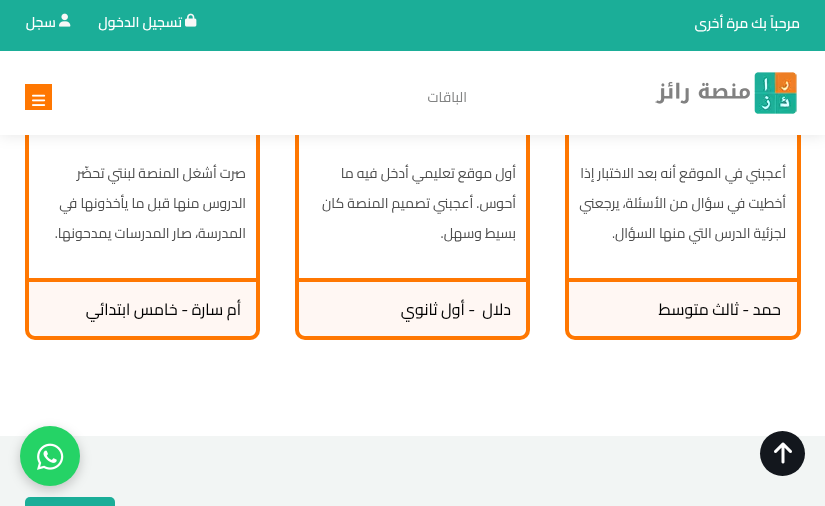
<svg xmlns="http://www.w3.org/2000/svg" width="825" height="506">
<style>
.a{font:600 14px Cairo;direction:rtl;fill:#fff}
.b{font:14px Cairo;direction:rtl;fill:#818282}
.c{font:14px Cairo;direction:rtl;fill:#4c4c4c}
.d{font:16px Cairo;direction:rtl;fill:#000}
</style>
<rect width="100%" height="100%" fill="#fff"/>
<rect fill="none" stroke="#ff7701" stroke-width="4" x="567" y="121" width="232" height="217" rx="8"/>
<rect fill="none" stroke="#ff7701" stroke-width="4" x="297" y="121" width="231" height="217" rx="8"/>
<rect fill="none" stroke="#ff7701" stroke-width="4" x="27" y="121" width="231" height="217" rx="8"/>
<path fill="#0000001a" filter="blur(7.5px)" d="M0 0h825v135H0z"/>
<path fill="#fff" d="M0 51h825v84H0z"/>
<path fill="#1bae98" d="M0 0h825v51H0z"/>
<image href="1.png" x="185" y="13" width="12" height="14"/>
<image href="2.png" x="59" y="13" width="12" height="14"/>
<image href="3.png" x="655" y="72" width="142" height="42"/>
<path fill="#ff7701" d="M25 84h27v26H25z"/>
<image href="4.png" x="32" y="94" width="14" height="12"/>
<path fill="#fff7f3" d="M569 278h228v48c0 5.5-4.5 10-10 10h-208c-5.5 0-10-4.5-10-10z"/>
<path fill="#ff7701" d="M569 278h228v4H569z"/>
<path fill="#fff7f3" d="M299 278h227v48c0 5.5-4.5 10-10 10h-207c-5.5 0-10-4.5-10-10z"/>
<path fill="#ff7701" d="M299 278h227v4H299z"/>
<path fill="#fff7f3" d="M29 278h227v48c0 5.5-4.5 10-10 10h-207c-5.5 0-10-4.5-10-10z"/>
<path fill="#ff7701" d="M29 278h227v4H29z"/>
<path fill="#f2f5f4" d="M0 436h825v70H0z"/>
<rect fill="#1bae98" x="25" y="497" width="90" height="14" rx="5"/>
<circle fill="#13171d" cx="782.5" cy="453.5" r="22.5"/>
<image href="5.png" x="774" y="442" width="18" height="22"/>
<rect fill="#00000033" filter="blur(6px)" x="20" y="430" width="60" height="60" rx="30"/>
<circle fill="#25d366" cx="50" cy="456" r="30"/>
<image href="6.png" x="37" y="443" width="27" height="27"/>
<text class="a" x="800" y="28">مرحباً بك مرة أخرى</text>
<text class="a" x="182" y="27">تسجيل الدخول</text>
<text class="a" x="56" y="27">سجل</text>
<text class="b" x="467" y="102">الباقات</text>
<text class="c" x="786" y="178">أعجبني في الموقع أنه بعد الاختبار إذا</text>
<text class="c" x="786" y="208">أخطيت في سؤال من الأسئلة، يرجعني</text>
<text class="c" x="786" y="238">لجزئية الدرس التي منها السؤال.</text>
<text class="d" x="781" y="315">حمد - ثالث متوسط</text>
<text class="c" x="516" y="178">أول موقع تعليمي أدخل فيه ما</text>
<text class="c" x="516" y="208">أحوس. أعجبني تصميم المنصة كان</text>
<text class="c" x="516" y="238">بسيط وسهل.</text>
<text class="d" xml:space="preserve" x="511" y="315">دلال  - أول ثانوي</text>
<text class="c" x="246" y="178">صرت أشغل المنصة لبنتي تحضّر</text>
<text class="c" x="246" y="208">الدروس منها قبل ما يأخذونها في</text>
<text class="c" x="246" y="238">المدرسة، صار المدرسات يمدحونها.</text>
<text class="d" x="241" y="315">أم سارة - خامس ابتدائي</text>
</svg>
